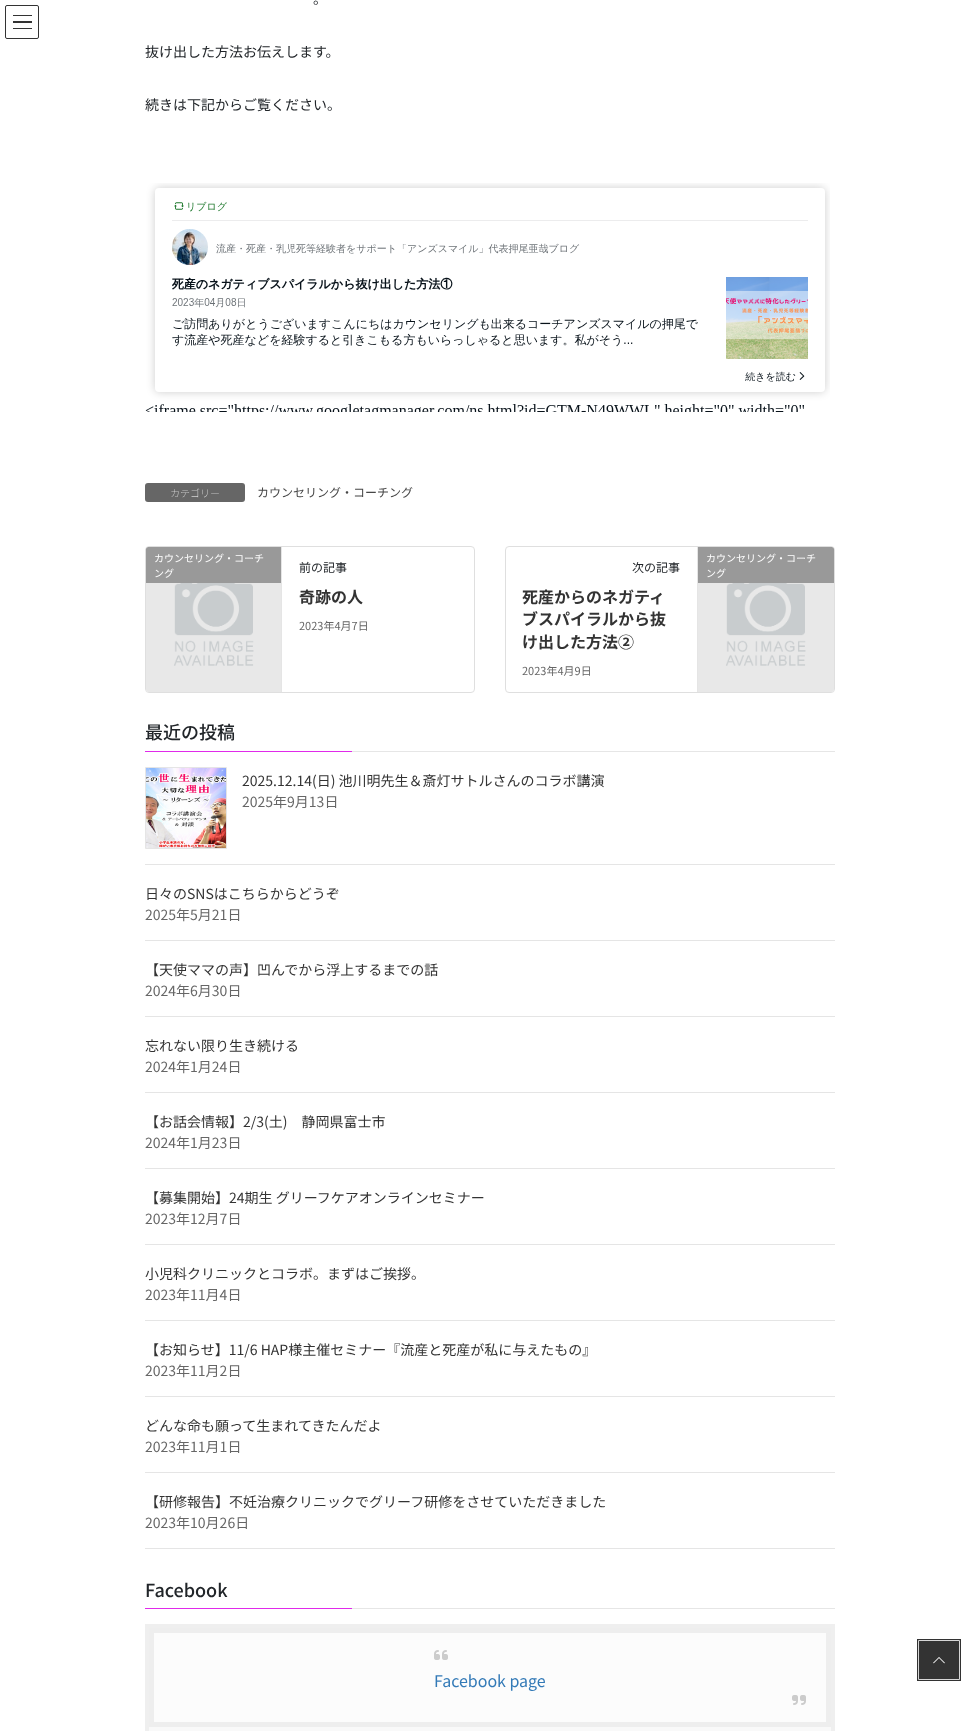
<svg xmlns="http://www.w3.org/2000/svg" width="979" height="1731">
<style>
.a{font:14px Noto Sans JP;fill:#212529}
.b{font:100 10px Noto Sans JP;fill:#fff}
.c{font:12px Noto Sans JP;fill:#464646}
.d{font:10px Noto Sans JP;fill:#fff}
.e{font:12px Noto Sans JP;fill:#212529}
.f{font:bold 16px Noto Sans JP;fill:#333}
.g{font:11px Noto Sans JP;fill:#666}
.h{font:500 18px Noto Sans JP;fill:#212529}
.i{font:14px Noto Sans JP;fill:#333}
.j{font:14px Noto Sans JP;fill:#666}
.k{font:16px Noto Sans JP;fill:#337ab7}
</style>
<rect width="100%" height="100%" fill="#fff"/>
<path fill="#333" d="M13 15h19v1H13z"/>
<path fill="#333" d="M13 21h19v2H13z"/>
<path fill="#333" d="M13 28h19v1H13z"/>
<rect fill="none" stroke="#333" x="5.5" y="5.5" width="33" height="33" rx="1.5"/>
<image href="1.png" x="145" y="183" width="685" height="229"/>
<rect fill="#666" x="145" y="483" width="100" height="19" rx="3"/>
<rect fill="none" stroke="#dfdfdf" x="145.5" y="546.5" width="329" height="146" rx="3.5"/>
<image href="2.png" x="146" y="547" width="135" height="145"/>
<path fill="#e5e5e5" d="M281 547h1v145H281z"/>
<path fill="#999" d="M148.5 547h132.5v36h-135v-33.5c0-1.5 1-2.5 2.5-2.5z"/>
<rect fill="none" stroke="#dfdfdf" x="505.5" y="546.5" width="329" height="146" rx="3.5"/>
<image href="3.png" x="698" y="547" width="136" height="145"/>
<path fill="#e5e5e5" d="M697 547h1v145H697z"/>
<path fill="#999" d="M698 547h133.5c1.5 0 2.5 1 2.5 2.5v33.5h-136z"/>
<path fill="#e6e6e6" d="M352 751h483v1H352z"/>
<path fill="#e02aea" d="M145 751h207v1H145z"/>
<path fill="#e5e5e5" d="M145 864h690v1H145z"/>
<path fill="none" stroke="#e5e5e5" d="M145.5 767.5h81v81H145.5z"/>
<image href="4.png" x="146" y="768" width="80" height="80"/>
<path fill="#e5e5e5" d="M145 940h690v1H145z"/>
<path fill="#e5e5e5" d="M145 1016h690v1H145z"/>
<path fill="#e5e5e5" d="M145 1092h690v1H145z"/>
<path fill="#e5e5e5" d="M145 1168h690v1H145z"/>
<path fill="#e5e5e5" d="M145 1244h690v1H145z"/>
<path fill="#e5e5e5" d="M145 1320h690v1H145z"/>
<path fill="#e5e5e5" d="M145 1396h690v1H145z"/>
<path fill="#e5e5e5" d="M145 1472h690v1H145z"/>
<path fill="#e5e5e5" d="M145 1548h690v1H145z"/>
<path fill="#e6e6e6" d="M352 1608h483v1H352z"/>
<path fill="#e02aea" d="M145 1608h207v1H145z"/>
<path fill="#f9f9f9" d="M149 1727h682v4H149z"/>
<path fill="none" stroke="#efefef" stroke-width="4" d="M147 1626h686v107H147z"/>
<path fill="#fcfcfc" stroke="#eee" stroke-width="5" d="M151.5 1630.5h677v94H151.5z"/>
<image href="5.png" x="434" y="1650" width="14" height="10"/>
<image href="6.png" x="792" y="1695" width="14" height="10"/>
<path fill="none" stroke="#333" stroke-width="2" d="M918 1640h42v40H918z"/>
<path fill="none" stroke="#d6d6d6" d="M918.5 1640.5h41v39H918.5z"/>
<path fill="#333" d="M919 1641h40v38H919z"/>
<image href="7.png" x="933" y="1657" width="12" height="7"/>
<text class="a" x="313" y="4">。</text>
<text class="a" x="145" y="57">抜け出した方法お伝えします。</text>
<text class="a" x="145" y="110">続きは下記からご覧ください。</text>
<text class="b" x="170" y="497">カテゴリー</text>
<text class="c" x="257" y="497">カウンセリング・コーチング</text>
<text class="d" x="154" y="562">カウンセリング・コーチ</text>
<text class="d" x="154" y="577">ング</text>
<text class="e" x="299" y="572">前の記事</text>
<text class="f" x="299" y="603">奇跡の人</text>
<text class="g" x="299" y="630">2023年4月7日</text>
<text class="e" x="632" y="572">次の記事</text>
<text class="f" x="522" y="603">死産からのネガティ</text>
<text class="f" x="522" y="625">ブスパイラルから抜</text>
<text class="f" x="522" y="648">け出した方法②</text>
<text class="g" x="522" y="675">2023年4月9日</text>
<text class="d" x="706" y="562">カウンセリング・コーチ</text>
<text class="d" x="706" y="577">ング</text>
<text class="h" x="145" y="739">最近の投稿</text>
<text class="i" x="242" y="786">2025.12.14(日) 池川明先生＆斎灯サトルさんのコラボ講演</text>
<text class="j" x="242" y="807">2025年9月13日</text>
<text class="i" x="145" y="899">日々のSNSはこちらからどうぞ</text>
<text class="j" x="145" y="920">2025年5月21日</text>
<text class="i" x="145" y="975">【天使ママの声】凹んでから浮上するまでの話</text>
<text class="j" x="145" y="996">2024年6月30日</text>
<text class="i" x="145" y="1051">忘れない限り生き続ける</text>
<text class="j" x="145" y="1072">2024年1月24日</text>
<text class="i" x="145" y="1127">【お話会情報】2/3(土)　静岡県富士市</text>
<text class="j" x="145" y="1148">2024年1月23日</text>
<text class="i" x="145" y="1203">【募集開始】24期生 グリーフケアオンラインセミナー</text>
<text class="j" x="145" y="1224">2023年12月7日</text>
<text class="i" x="145" y="1279">小児科クリニックとコラボ。まずはご挨拶。</text>
<text class="j" x="145" y="1300">2023年11月4日</text>
<text class="i" x="145" y="1355">【お知らせ】11/6 HAP様主催セミナー『流産と死産が私に与えたもの』</text>
<text class="j" x="145" y="1376">2023年11月2日</text>
<text class="i" x="145" y="1431">どんな命も願って生まれてきたんだよ</text>
<text class="j" x="145" y="1452">2023年11月1日</text>
<text class="i" x="145" y="1507">【研修報告】不妊治療クリニックでグリーフ研修をさせていただきました</text>
<text class="j" x="145" y="1528">2023年10月26日</text>
<text class="h" x="145" y="1597">Facebook</text>
<text class="k" x="434" y="1687">Facebook page</text>
</svg>
